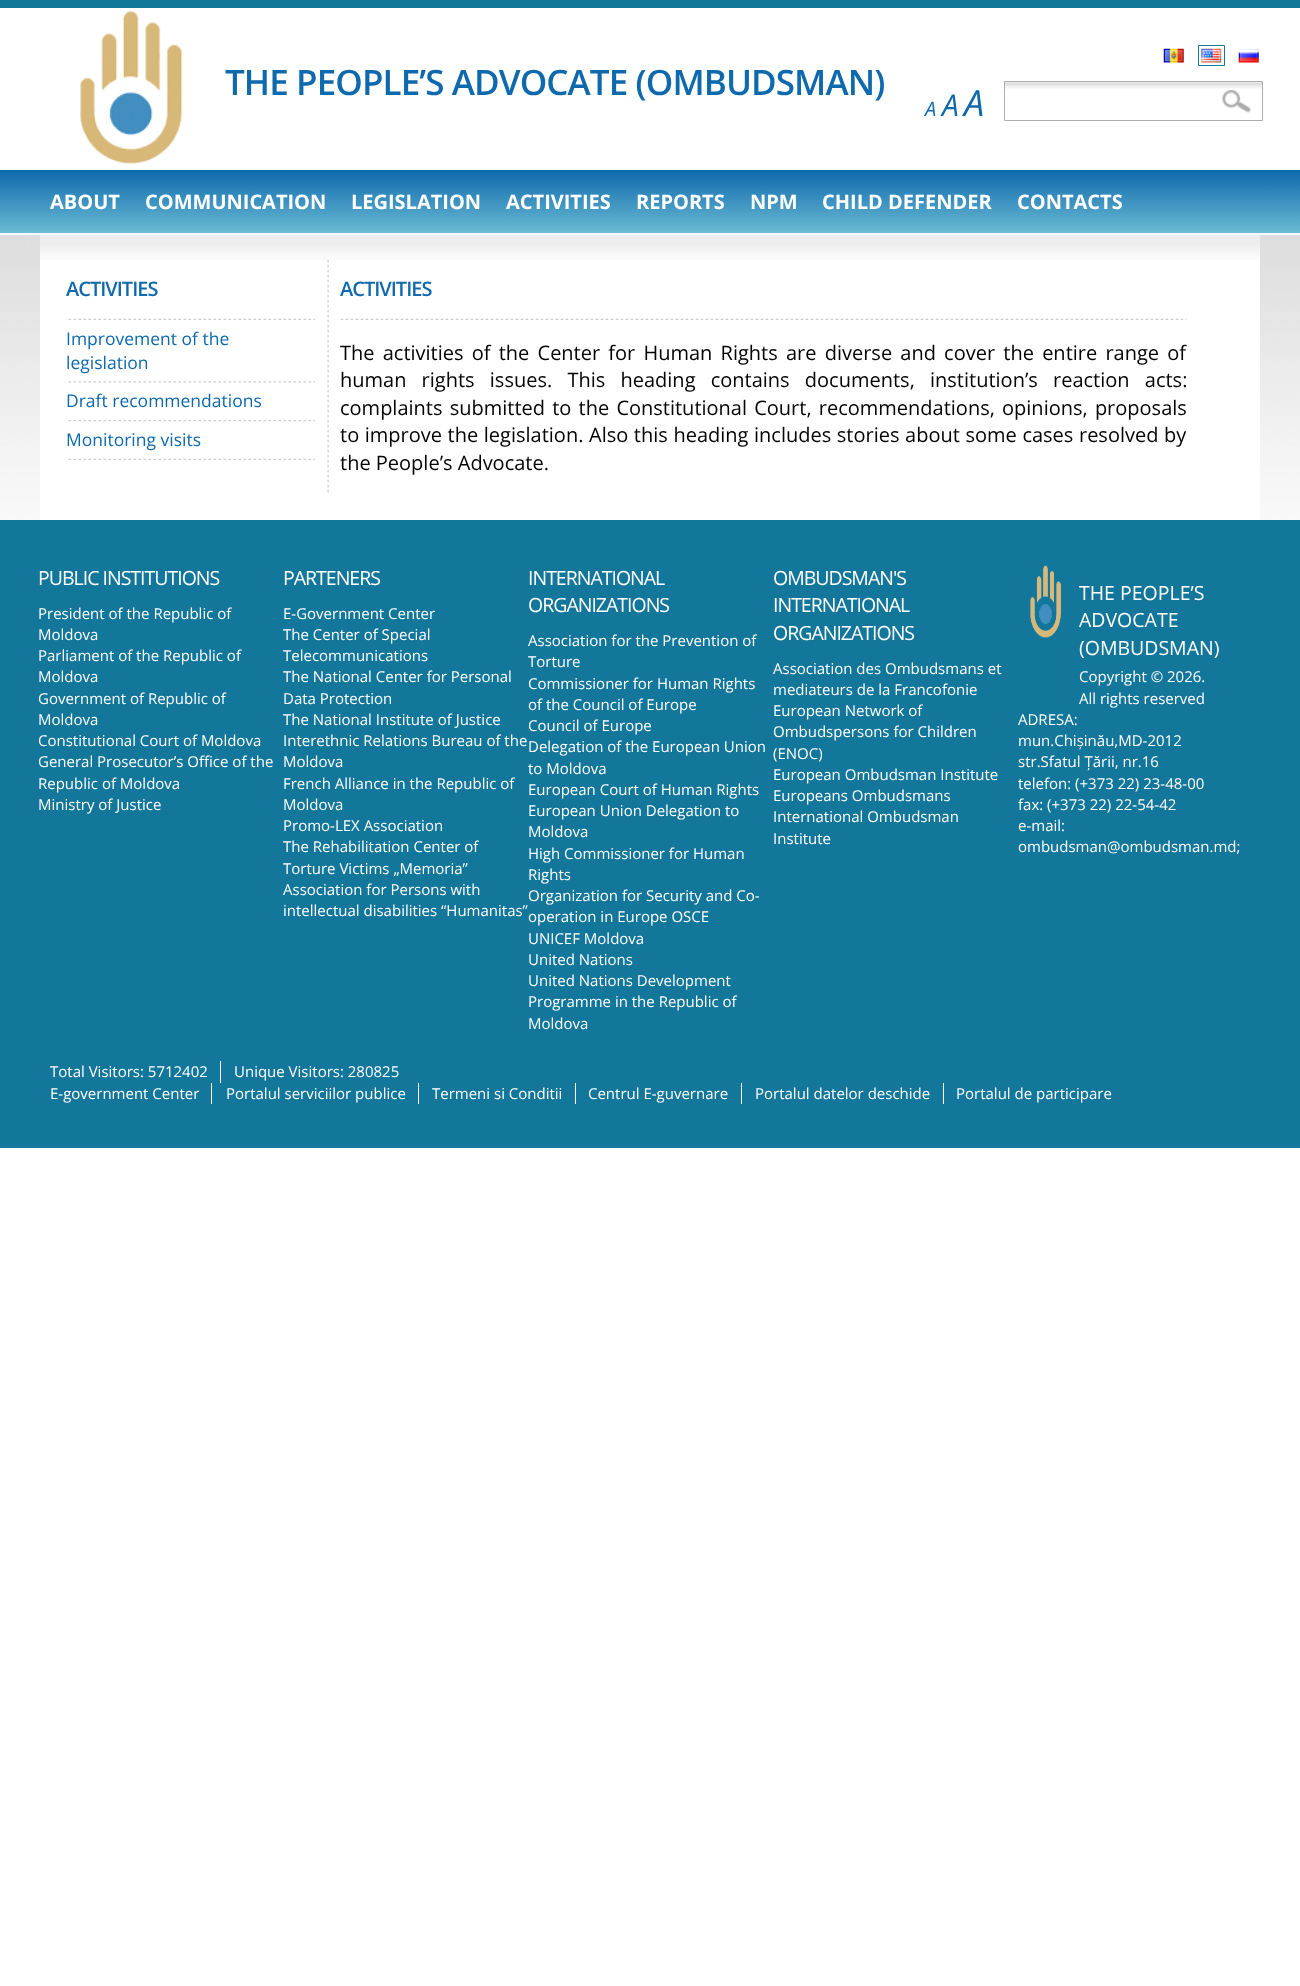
<svg xmlns="http://www.w3.org/2000/svg" width="1300" height="1986">
<style>
.a{font:600 35px Open Sans;letter-spacing:-0.9px;fill:#0e69ad}
.b{font:italic 20px Open Sans;fill:#0e69ad}
.c{font:italic 30px Open Sans;fill:#0e69ad}
.d{font:italic 36px Open Sans;fill:#0e69ad}
.e{font:bold 20px Open Sans;fill:#fff}
.f{font:600 20px Open Sans;letter-spacing:-1px;fill:#0e69ad}
.g{font:17.5px Open Sans;fill:#0e69ad}
.h{font:20px Open Sans;fill:#030303}
.i{font:19.5px Open Sans;letter-spacing:-1px;fill:#fff}
.j{font:15px Open Sans;fill:#fff}
.k{font:19.5px Open Sans;fill:#fff}
</style>
<defs>
<linearGradient id="g1" gradientUnits="userSpaceOnUse" x1="650" y1="170" x2="650" y2="233"><stop offset="0" stop-color="#0e69ad"/><stop offset="1" stop-color="#6abbd3"/></linearGradient>
</defs>
<rect width="100%" height="100%" fill="#fff"/>
<path fill="#13779a" d="M0 0h1300v8H0z"/>
<image href="1.png" x="1163" y="48" width="21" height="15"/>
<path fill="none" stroke="#13779b" d="M1198.5 45.5h26v20H1198.5z"/>
<image href="2.png" x="1201" y="48" width="21" height="15"/>
<image href="3.png" x="1238" y="48" width="21" height="15"/>
<image href="4.png" x="80" y="11" width="103" height="153"/>
<image href="5.png" x="1003" y="82" width="259" height="7"/>
<path fill="none" stroke="#acacac" d="M1004.5 81.5h258v39H1004.5z"/>
<image href="6.png" x="1222" y="89" width="30" height="24"/>
<path fill="url(#g1)" d="M0 170h1300v63H0z"/>
<image href="7.png" x="0" y="235" width="1300" height="285"/>
<path fill="#fff" d="M40 235h1220v285H40z"/>
<image href="8.png" x="40" y="235" width="1220" height="25"/>
<image href="9.png" x="66" y="318" width="249" height="2"/>
<image href="10.png" x="68" y="381" width="247" height="2"/>
<image href="11.png" x="66" y="420" width="249" height="2"/>
<image href="9.png" x="66" y="458" width="249" height="2"/>
<image href="12.png" x="327" y="260" width="2" height="235"/>
<image href="13.png" x="340" y="318" width="847" height="2"/>
<path fill="#13779b" d="M0 520h1300v628H0z"/>
<image href="14.png" x="1030" y="565" width="31" height="73"/>
<path fill="#fff" d="M220 1061h1v22H220z"/>
<path fill="#fff" d="M211 1083h1v21H211z"/>
<path fill="#fff" d="M418 1083h1v21H418z"/>
<path fill="#fff" d="M575 1083h1v21H575z"/>
<path fill="#fff" d="M741 1083h1v21H741z"/>
<path fill="#fff" d="M943 1083h1v21H943z"/>
<text class="a" x="225" y="95">THE PEOPLE’S ADVOCATE (OMBUDSMAN)</text>
<text class="b" x="925" y="116">A</text>
<text class="c" x="942" y="116">A</text>
<text class="d" x="964" y="116">A</text>
<text class="e" x="50" y="209">ABOUT</text>
<text class="e" x="145" y="209">COMMUNICATION</text>
<text class="e" x="351" y="209">LEGISLATION</text>
<text class="e" x="506" y="209">ACTIVITIES</text>
<text class="e" x="636" y="209">REPORTS</text>
<text class="e" x="750" y="209">NPM</text>
<text class="e" x="822" y="209">CHILD DEFENDER</text>
<text class="e" x="1017" y="209">CONTACTS</text>
<text class="f" x="66" y="296">ACTIVITIES</text>
<text class="g" x="66" y="345">Improvement of the</text>
<text class="g" x="66" y="369">legislation</text>
<text class="g" x="66" y="407">Draft recommendations</text>
<text class="g" x="66" y="446">Monitoring visits</text>
<text class="f" x="340" y="296">ACTIVITIES</text>
<text class="h" x="340" y="360" word-spacing="3">The activities of the Center for Human Rights are diverse and cover the entire range of</text>
<text class="h" x="340" y="387" word-spacing="10">human rights issues. This heading contains documents, institution’s reaction acts:</text>
<text class="h" x="340" y="415" word-spacing="2">complaints submitted to the Constitutional Court, recommendations, opinions, proposals</text>
<text class="h" x="340" y="442" word-spacing="0.4">to improve the legislation. Also this heading includes stories about some cases resolved by</text>
<text class="h" x="340" y="470">the People’s Advocate.</text>
<text class="i" x="38" y="585">PUBLIC INSTITUTIONS</text>
<text class="j" x="38" y="619">President of the Republic of</text>
<text class="j" x="38" y="640">Moldova</text>
<text class="j" x="38" y="661">Parliament of the Republic of</text>
<text class="j" x="38" y="682">Moldova</text>
<text class="j" x="38" y="704">Government of Republic of</text>
<text class="j" x="38" y="725">Moldova</text>
<text class="j" x="38" y="746">Constitutional Court of Moldova</text>
<text class="j" x="38" y="767">General Prosecutor’s Office of the</text>
<text class="j" x="38" y="789">Republic of Moldova</text>
<text class="j" x="38" y="810">Ministry of Justice</text>
<text class="i" x="283" y="585">PARTENERS</text>
<text class="j" x="283" y="619">E-Government Center</text>
<text class="j" x="283" y="640">The Center of Special</text>
<text class="j" x="283" y="661">Telecommunications</text>
<text class="j" x="283" y="682">The National Center for Personal</text>
<text class="j" x="283" y="704">Data Protection</text>
<text class="j" x="283" y="725">The National Institute of Justice</text>
<text class="j" x="283" y="746">Interethnic Relations Bureau of the</text>
<text class="j" x="283" y="767">Moldova</text>
<text class="j" x="283" y="789">French Alliance in the Republic of</text>
<text class="j" x="283" y="810">Moldova</text>
<text class="j" x="283" y="831">Promo-LEX Association</text>
<text class="j" x="283" y="852">The Rehabilitation Center of</text>
<text class="j" x="283" y="874">Torture Victims „Memoria”</text>
<text class="j" x="283" y="895">Association for Persons with</text>
<text class="j" x="283" y="916">intellectual disabilities “Humanitas”</text>
<text class="i" x="528" y="585">INTERNATIONAL</text>
<text class="i" x="528" y="612">ORGANIZATIONS</text>
<text class="j" x="528" y="646">Association for the Prevention of</text>
<text class="j" x="528" y="667">Torture</text>
<text class="j" x="528" y="689">Commissioner for Human Rights</text>
<text class="j" x="528" y="710">of the Council of Europe</text>
<text class="j" x="528" y="731">Council of Europe</text>
<text class="j" x="528" y="752">Delegation of the European Union</text>
<text class="j" x="528" y="774">to Moldova</text>
<text class="j" x="528" y="795">European Court of Human Rights</text>
<text class="j" x="528" y="816">European Union Delegation to</text>
<text class="j" x="528" y="837">Moldova</text>
<text class="j" x="528" y="859">High Commissioner for Human</text>
<text class="j" x="528" y="880">Rights</text>
<text class="j" x="528" y="901">Organization for Security and Co-</text>
<text class="j" x="528" y="922">operation in Europe OSCE</text>
<text class="j" x="528" y="944">UNICEF Moldova</text>
<text class="j" x="528" y="965">United Nations</text>
<text class="j" x="528" y="986">United Nations Development</text>
<text class="j" x="528" y="1007">Programme in the Republic of</text>
<text class="j" x="528" y="1029">Moldova</text>
<text class="i" x="773" y="585">OMBUDSMAN'S</text>
<text class="i" x="773" y="612">INTERNATIONAL</text>
<text class="i" x="773" y="640">ORGANIZATIONS</text>
<text class="j" x="773" y="674">Association des Ombudsmans et</text>
<text class="j" x="773" y="695">mediateurs de la Francofonie</text>
<text class="j" x="773" y="716">European Network of</text>
<text class="j" x="773" y="737">Ombudspersons for Children</text>
<text class="j" x="773" y="759">(ENOC)</text>
<text class="j" x="773" y="780">European Ombudsman Institute</text>
<text class="j" x="773" y="801">Europeans Ombudsmans</text>
<text class="j" x="773" y="822">International Ombudsman</text>
<text class="j" x="773" y="844">Institute</text>
<text class="k" x="1079" y="600">THE PEOPLE’S</text>
<text class="k" x="1079" y="627">ADVOCATE</text>
<text class="k" x="1079" y="655">(OMBUDSMAN)</text>
<text class="j" x="1079" y="682">Copyright © 2026.</text>
<text class="j" x="1079" y="704">All rights reserved</text>
<text class="j" x="1018" y="725">ADRESA:</text>
<text class="j" x="1018" y="746">mun.Chișinău,MD-2012</text>
<text class="j" x="1018" y="767">str.Sfatul Țării, nr.16</text>
<text class="j" x="1018" y="789">telefon: (+373 22) 23-48-00</text>
<text class="j" x="1018" y="810">fax: (+373 22) 22-54-42</text>
<text class="j" x="1018" y="831">e-mail:</text>
<text class="j" x="1018" y="852">ombudsman@ombudsman.md;</text>
<text class="j" x="50" y="1077">Total Visitors: 5712402</text>
<text class="j" x="234" y="1077">Unique Visitors: 280825</text>
<text class="j" x="50" y="1099">E-government Center</text>
<text class="j" x="226" y="1099">Portalul serviciilor publice</text>
<text class="j" x="432" y="1099">Termeni si Conditii</text>
<text class="j" x="588" y="1099">Centrul E-guvernare</text>
<text class="j" x="755" y="1099">Portalul datelor deschide</text>
<text class="j" x="956" y="1099">Portalul de participare</text>
</svg>
